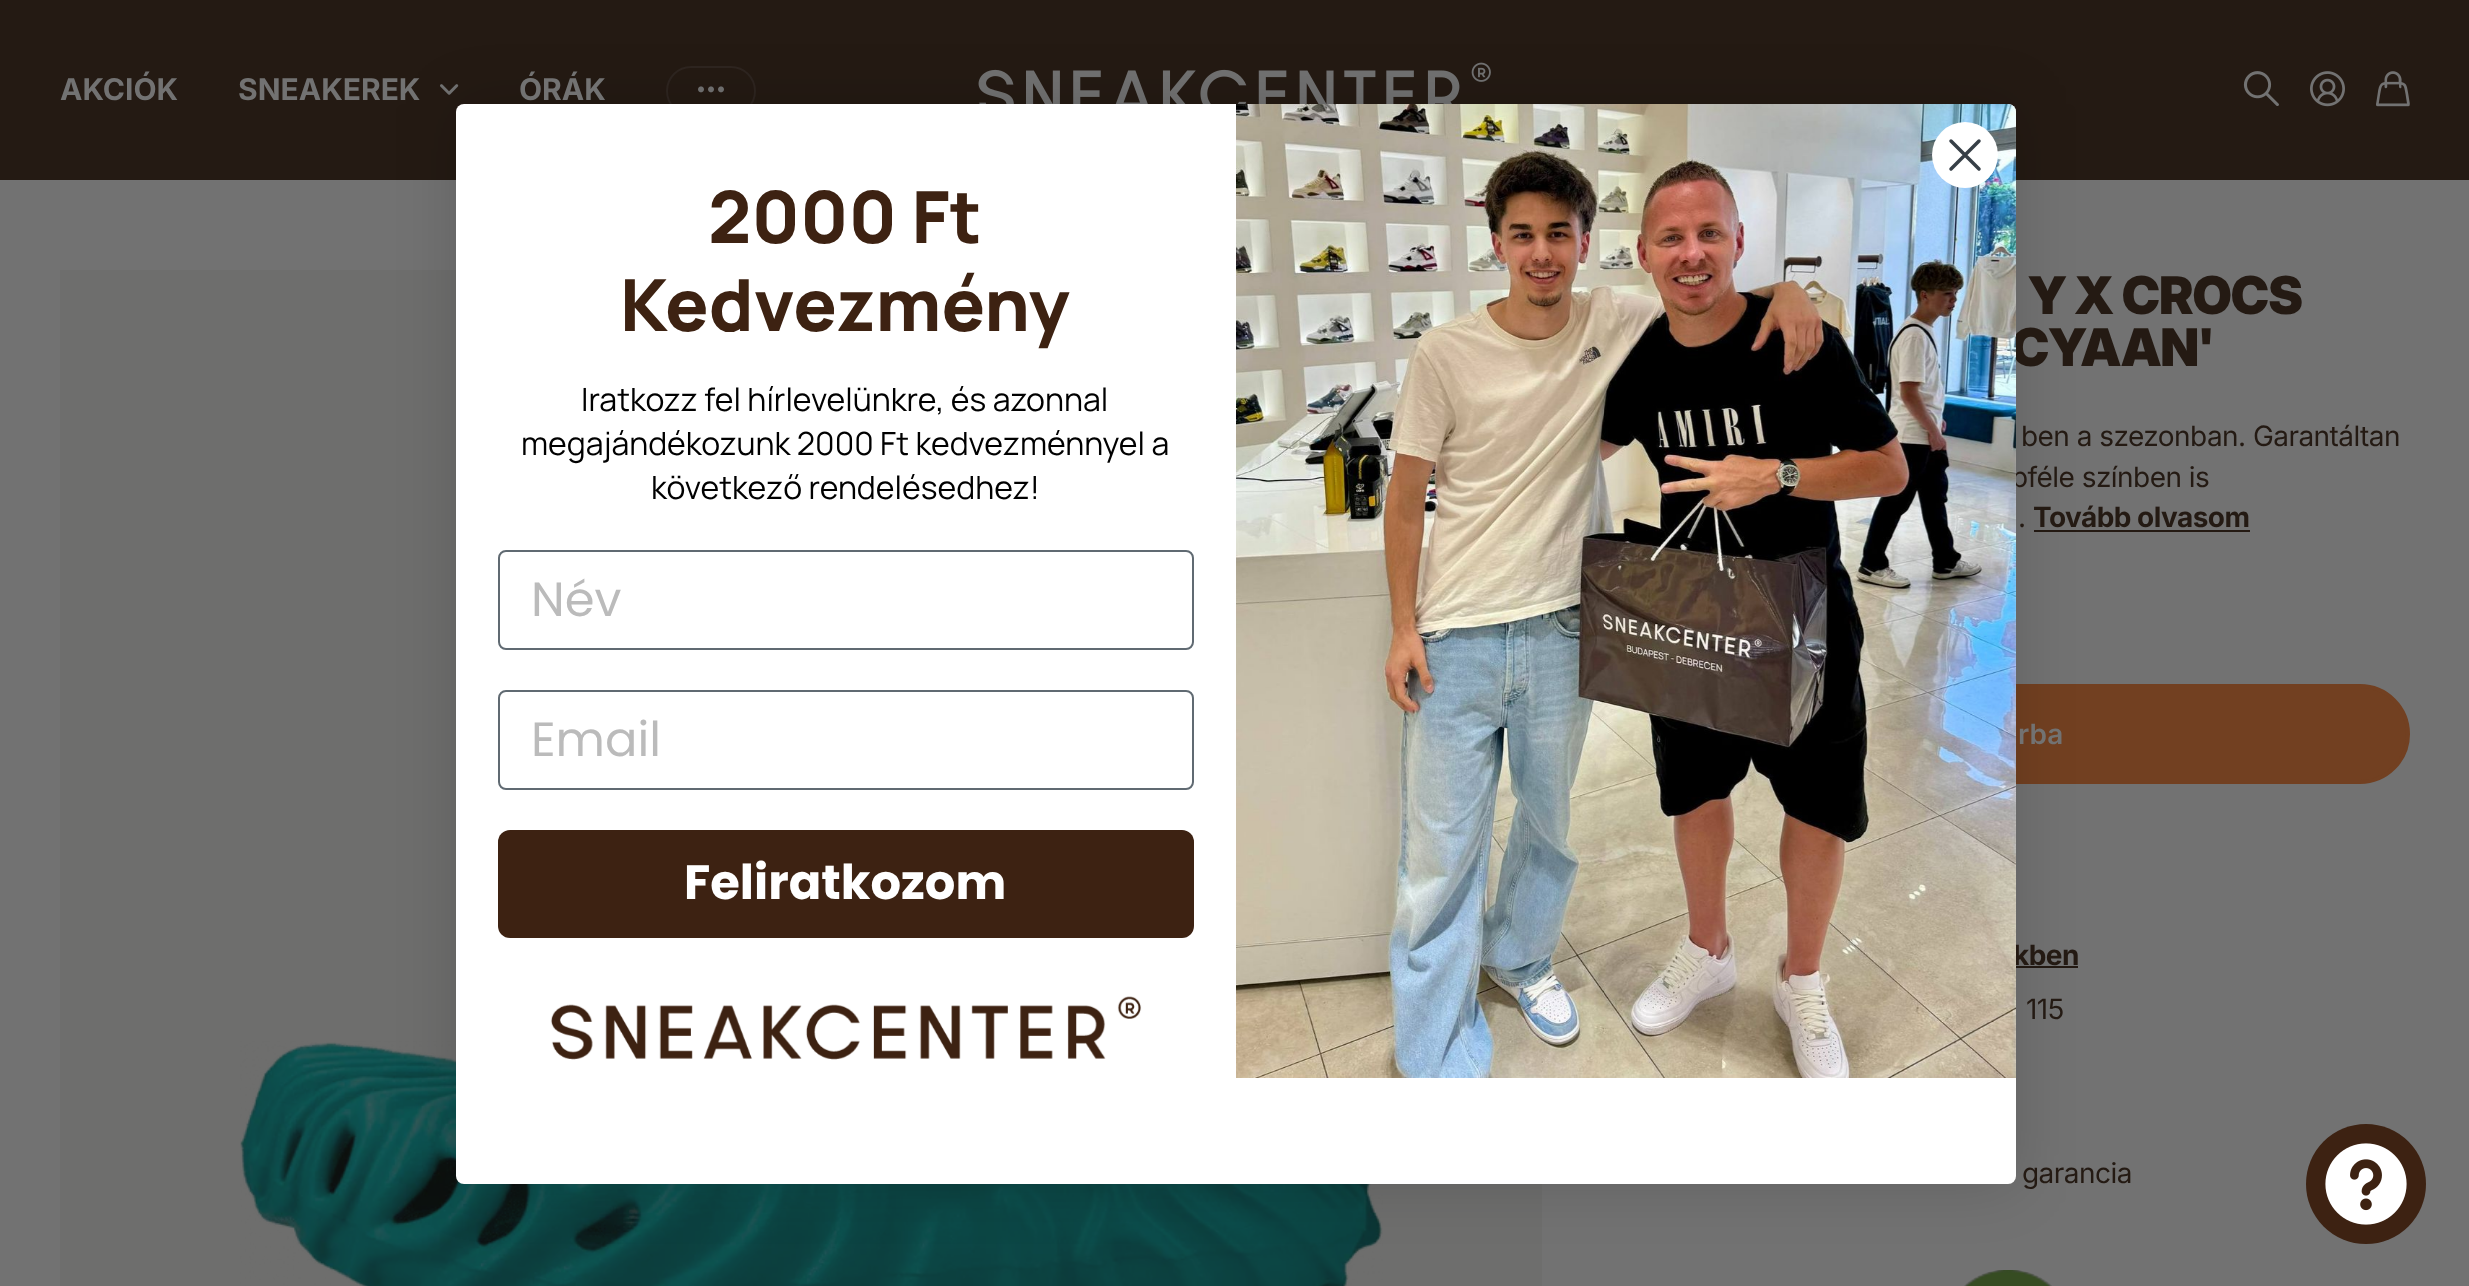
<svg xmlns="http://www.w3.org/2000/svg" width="2469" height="1286">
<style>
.a{font:bold 30px Inter;fill:#727272}
.b{font:900 52px Inter;letter-spacing:-1px;fill:#241a13}
.c{font:28px Inter;letter-spacing:-0.55px;fill:#241a13}
.d{font:bold 28px Inter;letter-spacing:-0.55px;fill:#241a13}
.e{font:600 28px Inter;fill:#727272}
.f{font:800 72px Manrope;fill:#3d2212}
.g{font:32px Manrope;fill:#000}
.h{font:48px Poppins;fill:#bbb}
.i{font:bold 48px Poppins;fill:#fff}
</style>
<rect width="100%" height="100%" fill="#727272"/>
<path fill="#241a13" d="M0 0h2469v180H0z"/>
<image href="1.png" x="440" y="84" width="19" height="11"/>
<rect fill="none" stroke="#2e2520" stroke-width="2" x="667" y="67" width="88" height="48" rx="24"/>
<image href="2.png" x="698" y="86" width="26" height="7"/>
<image href="3.png" x="978" y="62" width="513" height="42"/>
<image href="4.png" x="2243" y="71" width="36" height="35"/>
<image href="5.png" x="2310" y="71" width="35" height="36"/>
<image href="6.png" x="2376" y="71" width="34" height="36"/>
<path fill="#6e6e6d" d="M60 270h1482v1016H60z"/>
<image href="7.png" x="240" y="1041" width="1143" height="245"/>
<path fill="#241a13" d="M2034 530h216v2H2034z"/>
<rect fill="#724021" stroke="#724021" stroke-width="4" x="1608" y="686" width="800" height="96" rx="48"/>
<path fill="#241a13" d="M2016 966h62v2H2016z"/>
<image href="8.png" x="1964" y="1270" width="88" height="16"/>
<rect fill="#00000026" filter="blur(30px)" x="456" y="104" width="1560" height="1080" rx="8"/>
<circle fill="#3d2212" cx="2366" cy="1184" r="60"/>
<image href="11.png" x="2325" y="1143" width="82" height="82"/>
<text class="a" x="60" y="100">AKCIÓK</text>
<text class="a" x="238" y="100">SNEAKEREK</text>
<text class="a" x="519" y="100">ÓRÁK</text>
<text class="b" x="2028" y="314">Y X CROCS</text>
<text class="b" x="2011" y="366">CYAAN'</text>
<text class="c" x="2021" y="446">ben a szezonban. Garantáltan</text>
<text class="c" x="2011" y="487">bféle színben is</text>
<text class="c" x="2018" y="527">.</text>
<text class="d" x="2033" y="527">Tovább olvasom</text>
<text class="e" x="2018" y="744">rba</text>
<text class="d" x="2013" y="965">kben</text>
<text class="c" x="2026" y="1019">115</text>
<text class="c" x="2022" y="1183">garancia</text>
<rect fill="#fff" x="456" y="104" width="1560" height="1080" rx="8"/>
<text class="f" x="708" y="243">2000 Ft</text>
<text class="f" x="620" y="331">Kedvezmény</text>
<text class="g" x="581" y="411">Iratkozz fel hírlevelünkre, és azonnal</text>
<text class="g" x="521" y="455">megajándékozunk 2000 Ft kedvezménnyel a</text>
<text class="g" x="651" y="499">következő rendelésedhez!</text>
<rect fill="none" stroke="#606a72" stroke-width="2" x="499" y="551" width="694" height="98" rx="7"/>
<text class="h" x="531" y="616">Név</text>
<rect fill="none" stroke="#606a72" stroke-width="2" x="499" y="691" width="694" height="98" rx="7"/>
<text class="h" x="531" y="756">Email</text>
<rect fill="#3d2212" x="498" y="830" width="696" height="108" rx="12"/>
<text class="i" x="684" y="899">Feliratkozom</text>
<image href="9.png" x="550" y="996" width="592" height="64"/>
<image href="10.png" x="1236" y="104" width="780" height="974"/>
<circle fill="#fff" cx="1965" cy="155" r="33"/>
<path fill="none" stroke="#373f47" stroke-width="3.5" stroke-linecap="round" stroke-linejoin="round" d="M1951 141l28 28m-28 0l28-28z"/>
</svg>
